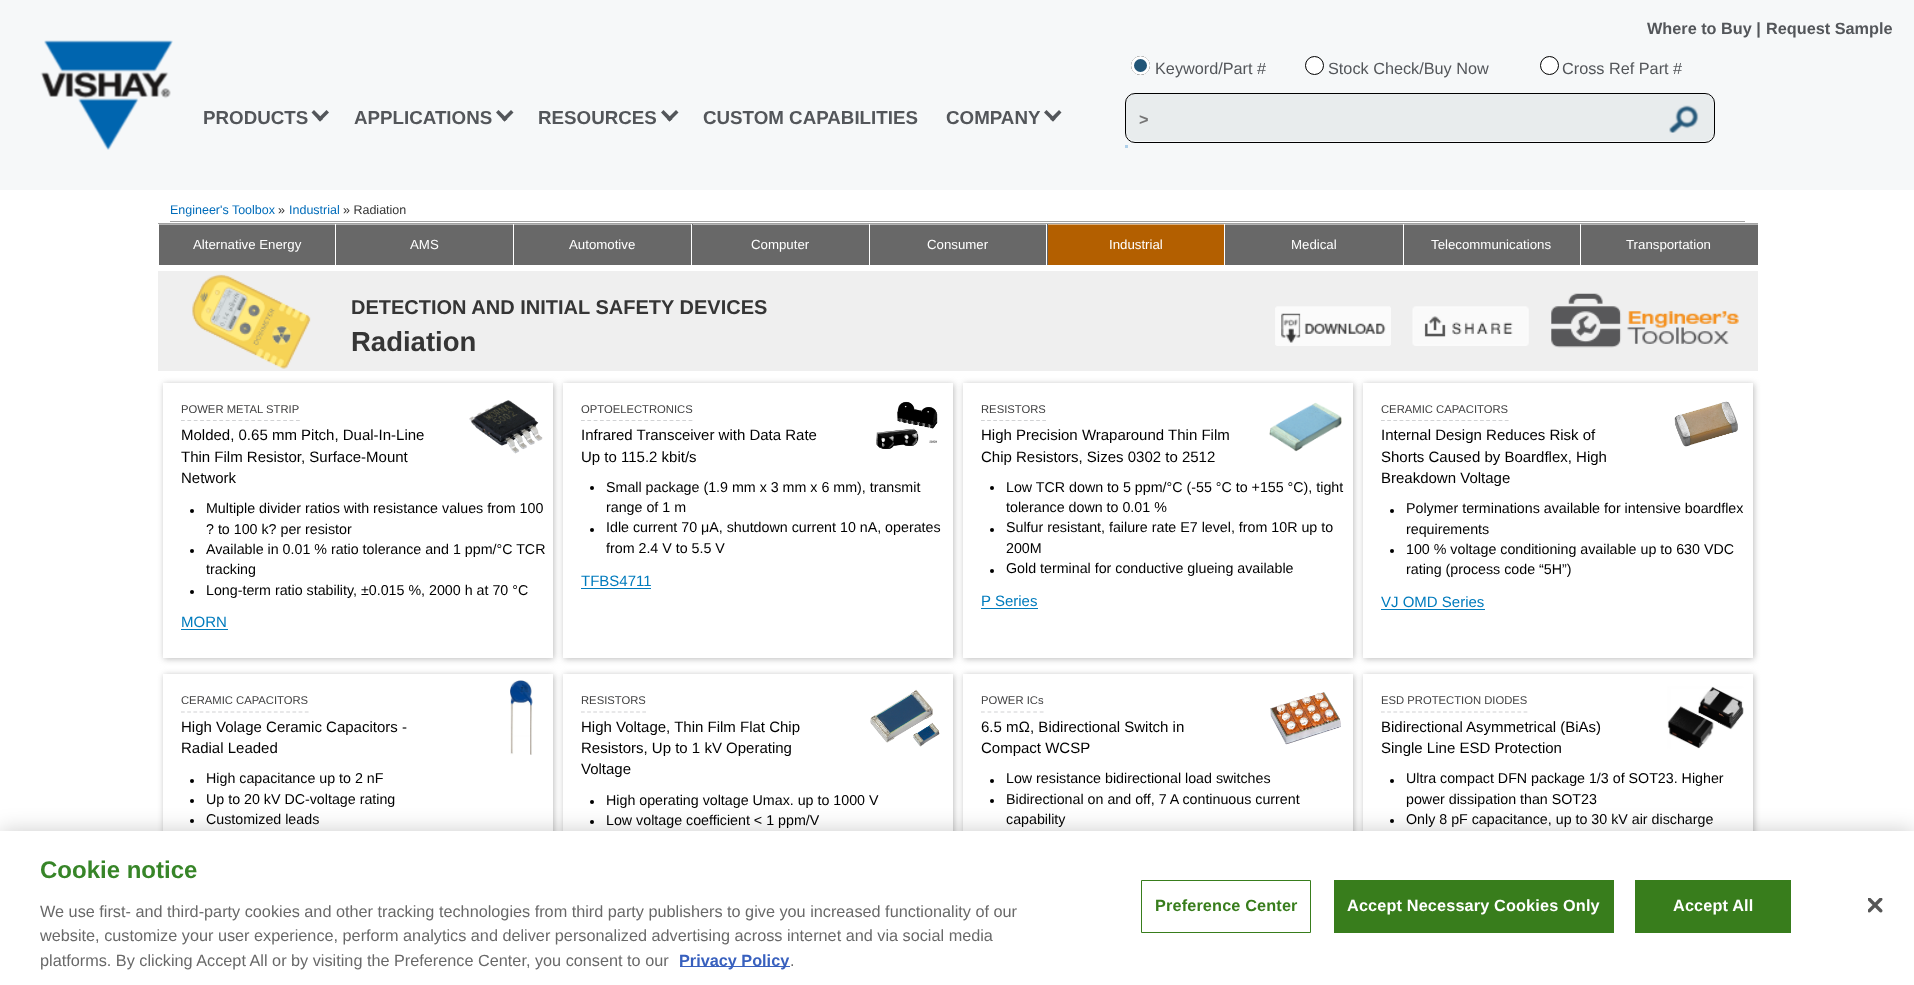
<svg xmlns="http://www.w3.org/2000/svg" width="1914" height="985">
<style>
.a{font:bold 16.25px Liberation Sans;fill:#53565a}
.b{font:bold 18.75px Liberation Sans;fill:#53565a}
.c{font:16.25px Liberation Sans;fill:#53565a}
.d{font:bold 16.25px Liberation Sans;fill:#757575}
.e{font:12.5px Liberation Sans;fill:#006cba}
.f{font:12.5px Liberation Sans;fill:#353535}
.g{font:13.25px Liberation Sans;fill:#fff}
.h{font:bold 20px Liberation Sans;fill:#353535}
.i{font:bold 27.5px Liberation Sans;fill:#353535}
.j{font:11.25px Liberation Sans;fill:#404041}
.k{font:15px Liberation Sans;fill:#000}
.l{font:14.25px Liberation Sans;fill:#000}
.m{font:15px Liberation Sans;fill:#007bbd}
.n{font:bold 24px Liberation Sans;fill:#378528}
.o{font:16.25px Liberation Sans;fill:#696969}
.p{font:bold 16.25px Liberation Sans;fill:#3860be}
.q{font:bold 16.25px Liberation Sans;letter-spacing:0.15px;fill:#387d1c}
.r{font:bold 16.25px Liberation Sans;letter-spacing:0.15px;fill:#fff}
</style>
<rect width="100%" height="100%" fill="#fff"/>
<path fill="#f6f8f9" d="M0 0h1914v190H0z"/>
<image href="1.png" x="40" y="40" width="133" height="110"/>
<path fill="#53565a" d="M326.5 110l2.5 2.5l-9 9l-2.5-2.5z"/>
<path fill="#53565a" d="M314 110l9 9l-3 2.5l-8.5-9z"/>
<path fill="#53565a" d="M511 110l2.5 2.5l-9 9l-2.5-2.5z"/>
<path fill="#53565a" d="M498.5 110l9 9l-3 2.5l-8.5-9z"/>
<path fill="#53565a" d="M676 110l2.5 2.5l-9 9l-2.5-2.5z"/>
<path fill="#53565a" d="M663.5 110l9 9l-3 2.5l-8.5-9z"/>
<path fill="#53565a" d="M1059 110l2.5 2.5l-8.5 9l-3-2.5z"/>
<path fill="#53565a" d="M1046.5 110l9 9l-2.5 2.5l-9-9z"/>
<circle fill="#fff" cx="1141" cy="66" r="8"/>
<circle fill="none" stroke="#000" cx="1140.5" cy="65.5" r="9"/>
<circle fill="#225678" stroke="#fff" stroke-width="3" cx="1140.5" cy="65.5" r="8"/>
<rect fill="#fff" x="1306" y="58" width="17" height="16" rx="8"/>
<circle fill="none" stroke="#000" cx="1314.5" cy="65.5" r="9"/>
<rect fill="#fff" x="1541" y="58" width="17" height="16" rx="8"/>
<circle fill="none" stroke="#000" cx="1549.5" cy="65.5" r="9"/>
<rect fill="#e8eced" x="1126" y="94" width="588" height="47" rx="9"/>
<rect fill="none" stroke="#000" x="1125.5" y="93.5" width="589" height="49" rx="9.5"/>
<image href="2.png" x="1669" y="105" width="30" height="28"/>
<path fill="#aed0ea" d="M1125 145h3v3H1125z"/>
<path fill="#a2a2a2" d="M158 223h1600v1H158z"/>
<path fill="#a2a2a2" d="M170 221h1575v1H170z"/>
<path fill="#686868" d="M159 225h176v40H159z"/>
<path fill="#b4b4b4" d="M159 224h176v1H159z"/>
<path fill="#686868" d="M336 225h177v40H336z"/>
<path fill="#b4b4b4" d="M336 224h177v1H336z"/>
<path fill="#686868" d="M514 225h177v40H514z"/>
<path fill="#b4b4b4" d="M514 224h177v1H514z"/>
<path fill="#686868" d="M692 224h177v41H692z"/>
<path fill="#b4b4b4" d="M693 224h176v1H693z"/>
<path fill="#686868" d="M870 225h176v40H870z"/>
<path fill="#b4b4b4" d="M870 224h176v1H870z"/>
<path fill="#686868" d="M1047 224h1v41H1047z"/>
<path fill="#b35f00" d="M1048 225h176v40H1048z"/>
<path fill="#d9af80" d="M1048 224h176v1H1048z"/>
<path fill="#686868" d="M1225 225h178v40H1225z"/>
<path fill="#b4b4b4" d="M1225 224h178v1H1225z"/>
<path fill="#686868" d="M1404 225h176v40H1404z"/>
<path fill="#b4b4b4" d="M1404 224h176v1H1404z"/>
<path fill="#686868" d="M1581 225h177v40H1581z"/>
<path fill="#b4b4b4" d="M1581 224h177v1H1581z"/>
<path fill="#efefef" d="M158 271h1600v100H158z"/>
<image href="3.png" x="192" y="274" width="119" height="95"/>
<image href="4.png" x="1275" y="306" width="116" height="40"/>
<image href="5.png" x="1412" y="306" width="117" height="40"/>
<image href="6.png" x="1551" y="293" width="188" height="55"/>
<path fill="#bcbcbc" filter="blur(3px)" d="M164 384h390v275H164z"/>
<path fill="#fff" d="M163 383h390v275H163z"/>
<image href="7.png" x="469" y="400" width="74" height="54"/>
<path fill="none" stroke="#d1d2d4" stroke-width="1.2" stroke-dasharray="3.75 2.64" d="M181 420.5h119"/>
<circle fill="#000" cx="192" cy="511" r="2"/>
<circle fill="#000" cx="192" cy="551" r="2"/>
<circle fill="#000" cx="192" cy="592" r="2"/>
<path fill="#007bbd" d="M181 629h47v1H181z"/>
<path fill="#bcbcbc" filter="blur(3px)" d="M564 384h390v275H564z"/>
<path fill="#fff" d="M563 383h390v275H563z"/>
<image href="8.png" x="876" y="401" width="62" height="48"/>
<path fill="none" stroke="#d1d2d4" stroke-width="1.2" stroke-dasharray="3.75 2.58" d="M581 420.5h111.5"/>
<circle fill="#000" cx="592" cy="488" r="2"/>
<circle fill="#000" cx="592" cy="530" r="2"/>
<path fill="#007bbd" d="M581 588h70v1H581z"/>
<path fill="#bcbcbc" filter="blur(3px)" d="M964 384h390v275H964z"/>
<path fill="#fff" d="M963 383h390v275H963z"/>
<image href="9.png" x="1269" y="402" width="73" height="50"/>
<path fill="none" stroke="#d1d2d4" stroke-width="1.2" stroke-dasharray="3.75 2.38" d="M981 420.5h65"/>
<circle fill="#000" cx="992" cy="488" r="2"/>
<circle fill="#000" cx="992" cy="530" r="2"/>
<circle fill="#000" cx="992" cy="571" r="2"/>
<path fill="#007bbd" d="M981 608h57v1H981z"/>
<path fill="#bcbcbc" filter="blur(3px)" d="M1364 384h390v275H1364z"/>
<path fill="#fff" d="M1363 383h390v275H1363z"/>
<image href="10.png" x="1674" y="401" width="64" height="46"/>
<path fill="none" stroke="#d1d2d4" stroke-width="1.2" stroke-dasharray="3.75 2.44" d="M1381 420.5h128"/>
<circle fill="#000" cx="1392" cy="511" r="2"/>
<circle fill="#000" cx="1392" cy="551" r="2"/>
<path fill="#007bbd" d="M1381 609h104v1H1381z"/>
<path fill="#bcbcbc" filter="blur(3px)" d="M164 675h390v275H164z"/>
<path fill="#fff" d="M163 674h390v157H163z"/>
<path fill="none" stroke="#d1d2d4" stroke-width="1.2" stroke-dasharray="3.75 2.44" d="M181 712h128"/>
<circle fill="#000" cx="192" cy="781" r="2"/>
<circle fill="#000" cx="192" cy="801" r="2"/>
<circle fill="#000" cx="192" cy="821" r="2"/>
<image href="11.png" x="510" y="680" width="23" height="75"/>
<path fill="#bcbcbc" filter="blur(3px)" d="M564 675h390v275H564z"/>
<path fill="#fff" d="M563 674h390v157H563z"/>
<path fill="none" stroke="#d1d2d4" stroke-width="1.2" stroke-dasharray="3.75 2.38" d="M581 712h65"/>
<circle fill="#000" cx="592" cy="802" r="2"/>
<circle fill="#000" cx="592" cy="822" r="2"/>
<image href="12.png" x="870" y="689" width="70" height="58"/>
<path fill="#bcbcbc" filter="blur(3px)" d="M964 675h390v275H964z"/>
<path fill="#fff" d="M963 674h390v157H963z"/>
<path fill="none" stroke="#d1d2d4" stroke-width="1.2" stroke-dasharray="3.75 2.78" d="M981 712h63"/>
<circle fill="#000" cx="992" cy="781" r="2"/>
<circle fill="#000" cx="992" cy="801" r="2"/>
<image href="13.png" x="1270" y="692" width="71" height="53"/>
<path fill="#bcbcbc" filter="blur(3px)" d="M1364 675h390v275H1364z"/>
<path fill="#fff" d="M1363 674h390v157H1363z"/>
<image href="14.png" x="1667" y="686" width="77" height="63"/>
<path fill="none" stroke="#d1d2d4" stroke-width="1.2" stroke-dasharray="3.75 2.45" d="M1381 712h146.5"/>
<circle fill="#000" cx="1392" cy="781" r="2"/>
<circle fill="#000" cx="1392" cy="821" r="2"/>
<path fill="#00000033" filter="blur(11px)" d="M0 831h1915v154H0z"/>
<path fill="#fff" d="M0 831h1914v154H0z"/>
<path fill="#3860be" d="M680 966h110v1H680z"/>
<path fill="none" stroke="#387d1c" d="M1141.5 880.5h169v52H1141.5z"/>
<path fill="#387d1c" d="M1334 880h280v53H1334z"/>
<path fill="#387d1c" d="M1635 880h156v53H1635z"/>
<image href="15.png" x="1868" y="898" width="15" height="15"/>
<text class="a" x="1647" y="34">Where to Buy |</text>
<text class="a" x="1766" y="34">Request Sample</text>
<text class="b" x="203" y="124">PRODUCTS</text>
<text class="b" x="354" y="124">APPLICATIONS</text>
<text class="b" x="538" y="124">RESOURCES</text>
<text class="b" x="703" y="124">CUSTOM CAPABILITIES</text>
<text class="b" x="946" y="124">COMPANY</text>
<text class="c" x="1155" y="74">Keyword/Part #</text>
<text class="c" x="1328" y="74">Stock Check/Buy Now</text>
<text class="c" x="1562" y="74">Cross Ref Part #</text>
<text class="d" x="1139" y="125">&gt;</text>
<text class="e" x="170" y="214">Engineer's Toolbox</text>
<text class="f" x="278" y="214">»</text>
<text class="e" x="289" y="214">Industrial</text>
<text class="f" x="343" y="214">» Radiation</text>
<text class="g" x="193" y="249">Alternative Energy</text>
<text class="g" x="410" y="249">AMS</text>
<text class="g" x="569" y="249">Automotive</text>
<text class="g" x="751" y="249">Computer</text>
<text class="g" x="927" y="249">Consumer</text>
<text class="g" x="1109" y="249">Industrial</text>
<text class="g" x="1291" y="249">Medical</text>
<text class="g" x="1431" y="249">Telecommunications</text>
<text class="g" x="1626" y="249">Transportation</text>
<text class="h" x="351" y="314">DETECTION AND INITIAL SAFETY DEVICES</text>
<text class="i" x="351" y="351">Radiation</text>
<text class="j" x="181" y="413">POWER METAL STRIP</text>
<text class="k" x="181" y="440">Molded, 0.65 mm Pitch, Dual-In-Line</text>
<text class="k" x="181" y="462">Thin Film Resistor, Surface-Mount</text>
<text class="k" x="181" y="483">Network</text>
<text class="l" x="206" y="513">Multiple divider ratios with resistance values from 100</text>
<text class="l" x="206" y="534">? to 100 k? per resistor</text>
<text class="l" x="206" y="554">Available in 0.01 % ratio tolerance and 1 ppm/°C TCR</text>
<text class="l" x="206" y="574">tracking</text>
<text class="l" x="206" y="595">Long-term ratio stability, ±0.015 %, 2000 h at 70 °C</text>
<text class="m" x="181" y="627">MORN</text>
<text class="j" x="581" y="413">OPTOELECTRONICS</text>
<text class="k" x="581" y="440">Infrared Transceiver with Data Rate</text>
<text class="k" x="581" y="462">Up to 115.2 kbit/s</text>
<text class="l" x="606" y="492">Small package (1.9 mm x 3 mm x 6 mm), transmit</text>
<text class="l" x="606" y="512">range of 1 m</text>
<text class="l" x="606" y="532">Idle current 70 μA, shutdown current 10 nA, operates</text>
<text class="l" x="606" y="553">from 2.4 V to 5.5 V</text>
<text class="m" x="581" y="586">TFBS4711</text>
<text class="j" x="981" y="413">RESISTORS</text>
<text class="k" x="981" y="440">High Precision Wraparound Thin Film</text>
<text class="k" x="981" y="462">Chip Resistors, Sizes 0302 to 2512</text>
<text class="l" x="1006" y="492">Low TCR down to 5 ppm/°C (-55 °C to +155 °C), tight</text>
<text class="l" x="1006" y="512">tolerance down to 0.01 %</text>
<text class="l" x="1006" y="532">Sulfur resistant, failure rate E7 level, from 10R up to</text>
<text class="l" x="1006" y="553">200M</text>
<text class="l" x="1006" y="573">Gold terminal for conductive glueing available</text>
<text class="m" x="981" y="606">P Series</text>
<text class="j" x="1381" y="413">CERAMIC CAPACITORS</text>
<text class="k" x="1381" y="440">Internal Design Reduces Risk of</text>
<text class="k" x="1381" y="462">Shorts Caused by Boardflex, High</text>
<text class="k" x="1381" y="483">Breakdown Voltage</text>
<text class="l" x="1406" y="513">Polymer terminations available for intensive boardflex</text>
<text class="l" x="1406" y="534">requirements</text>
<text class="l" x="1406" y="554">100 % voltage conditioning available up to 630 VDC</text>
<text class="l" x="1406" y="574">rating (process code “5H”)</text>
<text class="m" x="1381" y="607">VJ OMD Series</text>
<text class="j" x="181" y="704">CERAMIC CAPACITORS</text>
<text class="k" x="181" y="732">High Volage Ceramic Capacitors -</text>
<text class="k" x="181" y="753">Radial Leaded</text>
<text class="l" x="206" y="783">High capacitance up to 2 nF</text>
<text class="l" x="206" y="804">Up to 20 kV DC-voltage rating</text>
<text class="l" x="206" y="824">Customized leads</text>
<text class="j" x="581" y="704">RESISTORS</text>
<text class="k" x="581" y="732">High Voltage, Thin Film Flat Chip</text>
<text class="k" x="581" y="753">Resistors, Up to 1 kV Operating</text>
<text class="k" x="581" y="774">Voltage</text>
<text class="l" x="606" y="805">High operating voltage Umax. up to 1000 V</text>
<text class="l" x="606" y="825">Low voltage coefficient &lt; 1 ppm/V</text>
<text class="j" x="981" y="704">POWER ICs</text>
<text class="k" x="981" y="732">6.5 mΩ, Bidirectional Switch in</text>
<text class="k" x="981" y="753">Compact WCSP</text>
<text class="l" x="1006" y="783">Low resistance bidirectional load switches</text>
<text class="l" x="1006" y="804">Bidirectional on and off, 7 A continuous current</text>
<text class="l" x="1006" y="824">capability</text>
<text class="j" x="1381" y="704">ESD PROTECTION DIODES</text>
<text class="k" x="1381" y="732">Bidirectional Asymmetrical (BiAs)</text>
<text class="k" x="1381" y="753">Single Line ESD Protection</text>
<text class="l" x="1406" y="783">Ultra compact DFN package 1/3 of SOT23. Higher</text>
<text class="l" x="1406" y="804">power dissipation than SOT23</text>
<text class="l" x="1406" y="824">Only 8 pF capacitance, up to 30 kV air discharge</text>
<text class="n" x="40" y="878">Cookie notice</text>
<text class="o" x="40" y="917">We use first- and third-party cookies and other tracking technologies from third party publishers to give you increased functionality of our</text>
<text class="o" x="40" y="941">website, customize your user experience, perform analytics and deliver personalized advertising across internet and via social media</text>
<text class="o" x="40" y="966">platforms. By clicking Accept All or by visiting the Preference Center, you consent to our</text>
<text class="p" x="679" y="966">Privacy Policy</text>
<text class="o" x="790" y="966">.</text>
<text class="q" x="1155" y="911">Preference Center</text>
<text class="r" x="1347" y="911">Accept Necessary Cookies Only</text>
<text class="r" x="1673" y="911">Accept All</text>
</svg>
